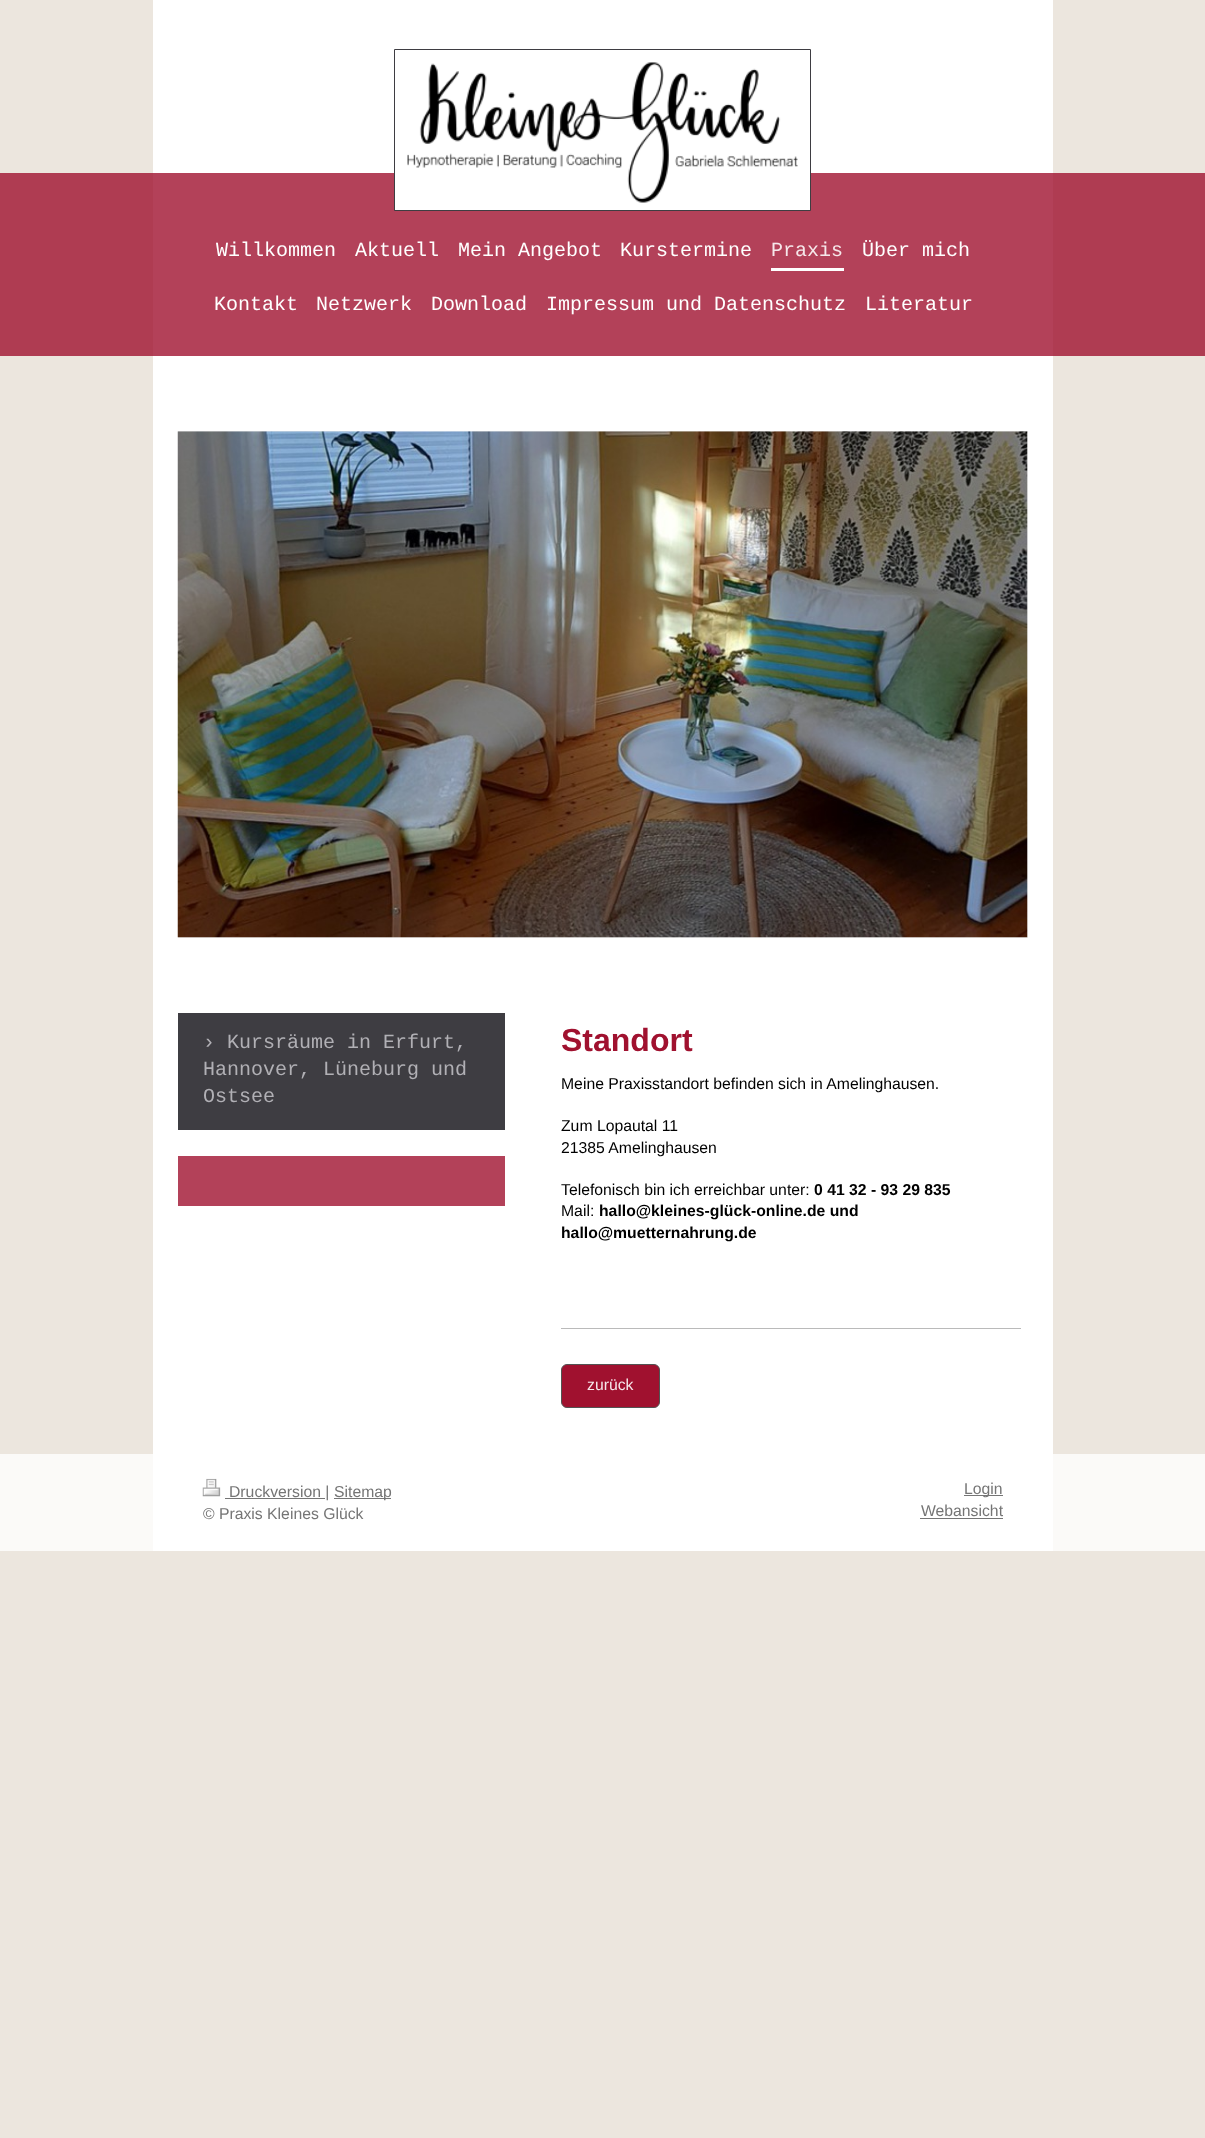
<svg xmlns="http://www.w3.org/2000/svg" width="1205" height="2138">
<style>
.a{font:20px Liberation Mono;fill:#fff}
.b{font:20px Liberation Mono;fill:#f6e7ea}
.c{font:20px Liberation Mono;fill:#b1b0b5}
.d{font:bold 32px Liberation Sans;fill:#a0112f}
.e{font:15.75px Liberation Sans;fill:#000}
.f{font:bold 15.75px Liberation Sans;fill:#000}
.g{font:15.75px Liberation Sans;fill:#f6e7ea}
.h{font:15.75px Liberation Sans;fill:#757575}
</style>
<defs>
<clipPath id="clip1"><path d="M203 1479h800v47H203z"/></clipPath>
</defs>
<rect width="100%" height="100%" fill="#ece6de"/>
<path fill="#fbfaf8" d="M0 1454h1205v97H0z"/>
<path fill="#af3c52" d="M0 173h1205v183H0z"/>
<path fill="#fff" d="M153 0h900v1551H153z"/>
<path fill="#b34159" d="M153 173h900v183H153z"/>
<path fill="none" stroke="#3e3d42" d="M394.5 49.5h416v161H394.5z"/>
<path fill="#fff" d="M395 173h415v37H395z"/>
<image href="1.png" x="407" y="62" width="391" height="141"/>
<path fill="#fff" d="M771 268h73v3H771z"/>
<path fill="#eee" d="M178 431h850v507H178z"/>
<image href="2.png" x="177" y="431" width="851" height="507"/>
<path fill="#3e3d42" d="M178 1013h327v117H178z"/>
<path fill="#b34159" d="M178 1156h327v50H178z"/>
<path fill="#bababa" d="M561 1328h460v1H561z"/>
<rect fill="#a0112f" stroke="#535353" x="561.5" y="1364.5" width="98" height="43" rx="5.5"/>
<image href="3.png" x="202" y="1478" width="19" height="19"/>
<path fill="#757575" d="M225 1498h100v1H225z"/>
<path fill="#757575" d="M334 1498h57v1H334z"/>
<path fill="#757575" d="M964 1495h39v1H964z"/>
<path fill="#757575" d="M920 1518h83v1H920z"/>
<text class="a" x="216" y="256">Willkommen</text>
<text class="a" x="355" y="256">Aktuell</text>
<text class="a" x="458" y="256">Mein Angebot</text>
<text class="a" x="620" y="256">Kurstermine</text>
<text class="b" x="771" y="256">Praxis</text>
<text class="a" x="862" y="256">Über mich</text>
<text class="a" x="214" y="310">Kontakt</text>
<text class="a" x="316" y="310">Netzwerk</text>
<text class="a" x="431" y="310">Download</text>
<text class="a" x="546" y="310">Impressum und Datenschutz</text>
<text class="a" x="865" y="310">Literatur</text>
<text class="c" x="203" y="1048">› Kursräume in Erfurt,</text>
<text class="c" x="203" y="1075">Hannover, Lüneburg und</text>
<text class="c" x="203" y="1102">Ostsee</text>
<text class="d" x="561" y="1051">Standort</text>
<text class="e" x="561" y="1089">Meine Praxisstandort befinden sich in Amelinghausen.</text>
<text class="e" x="561" y="1131">Zum Lopautal 11</text>
<text class="e" x="561" y="1153">21385 Amelinghausen</text>
<text class="e" x="561" y="1195">Telefonisch bin ich erreichbar unter:</text>
<text class="f" x="814" y="1195">0 41 32 - 93 29 835</text>
<text class="e" x="561" y="1216">Mail:</text>
<text class="f" x="599" y="1216">hallo@kleines-glück-online.de und</text>
<text class="f" x="561" y="1238">hallo@muetternahrung.de</text>
<text class="g" x="587" y="1390">zurück</text>
<text class="h" x="229" y="1497">Druckversion |</text>
<text class="h" x="334" y="1497">Sitemap</text>
<g clip-path="url(#clip1)">
<text class="h" x="203" y="1519">© Praxis Kleines Glück</text>
</g>
<text class="h" x="964" y="1494">Login</text>
<text class="h" x="921" y="1516">Webansicht</text>
</svg>
